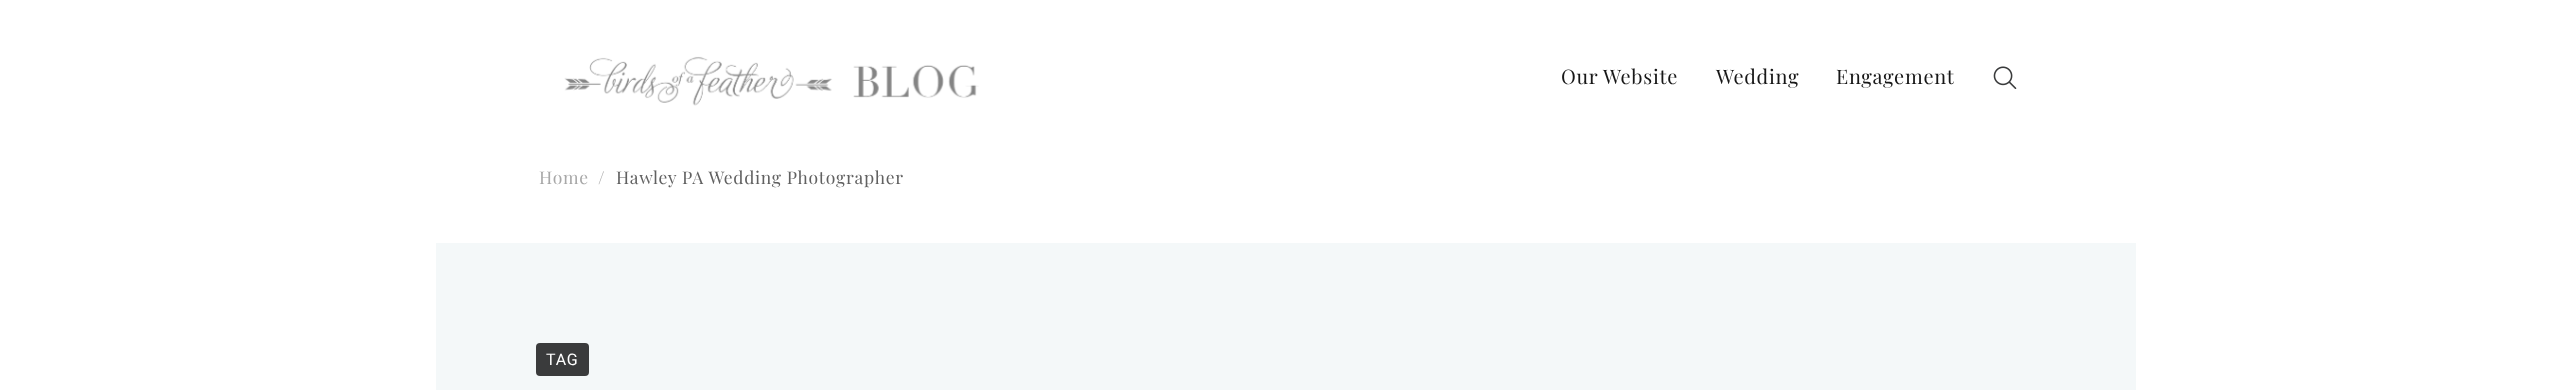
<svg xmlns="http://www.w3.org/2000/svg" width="2572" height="390">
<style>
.a{font:20px Playfair Display;letter-spacing:0.7px;fill:#181818}
.b{font:17.5px Playfair Display;letter-spacing:0.7px;fill:#a8a8a8}
.c{font:17.5px Playfair Display;letter-spacing:0.7px;fill:#616161}
.d{font:16px Roboto;letter-spacing:0.7px;fill:#fff}
</style>
<rect width="100%" height="100%" fill="#fff"/>
<image href="1.png" x="564" y="56" width="415" height="50"/>
<image href="2.png" x="1993" y="66" width="24" height="23"/>
<path fill="#f4f8f9" d="M436 243h1700v147H436z"/>
<rect fill="#3a3b3c" x="536" y="343" width="53" height="33" rx="4"/>
<text class="a" x="1561" y="84">Our Website</text>
<text class="a" x="1716" y="84">Wedding</text>
<text class="a" x="1836" y="84">Engagement</text>
<text class="b" x="539" y="184">Home</text>
<text class="b" x="598" y="184">/</text>
<text class="c" x="616" y="184">Hawley PA Wedding Photographer</text>
<text class="d" x="546" y="365">TAG</text>
</svg>
